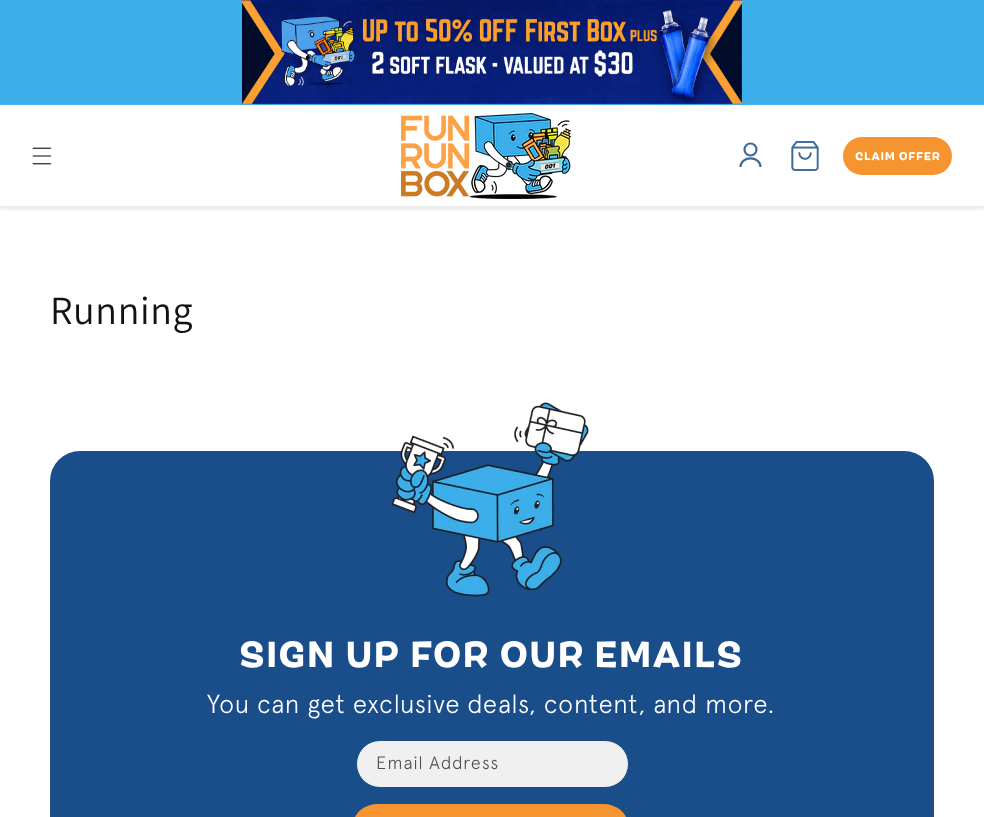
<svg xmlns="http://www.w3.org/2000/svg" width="984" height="817">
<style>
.a{font:600 11px 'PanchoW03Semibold';letter-spacing:0.6px;fill:#fff}
.b{font:40px Assistant;letter-spacing:0.6px;fill:#121212}
.c{font:600 36px 'PanchoW03Semibold';letter-spacing:0.6px;fill:#fff}
.d{font:300 26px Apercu;letter-spacing:0.6px;fill:#fff}
.e{font:300 18px Apercu;letter-spacing:1px;fill:#515151}
</style>
<defs>
<clipPath id="clip1"><path d="M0 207h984v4H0z"/></clipPath>
</defs>
<rect width="100%" height="100%" fill="#fff"/>
<g clip-path="url(#clip1)">
<path fill="#0000001a" filter="blur(2.5px)" d="M0 107h984v102H0z"/>
</g>
<path fill="#3caeea" d="M0 0h984v104H0z"/>
<path fill="#4cb4ec" d="M0 104h984v1H0z"/>
<image href="1.png" x="242" y="0" width="500" height="105"/>
<path fill="#ececec" d="M0 206h984v1H0z"/>
<image href="2.png" x="32" y="147" width="20" height="18"/>
<image href="3.png" x="401" y="113" width="170" height="86"/>
<circle fill="none" stroke="#3e6a99" stroke-width="2.2" cx="750.5" cy="149.5" r="6"/>
<path fill="none" stroke="#3e6a99" stroke-width="2.2" d="M740.5 167c0-11.5 20-11.5 20 0"/>
<image href="4.png" x="791" y="141" width="28" height="30"/>
<rect fill="#f69530" x="843" y="137" width="109" height="38" rx="19"/>
<rect fill="#1a4e8a" x="50" y="451" width="884" height="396" rx="30"/>
<image href="5.png" x="391" y="402" width="198" height="195"/>
<rect fill="#f0f0f0" stroke="#194e87" x="356.5" y="740.5" width="272" height="47" rx="23.5"/>
<rect fill="#f69530" x="354" y="804" width="273" height="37" rx="24"/>
<text class="a" x="855" y="160">CLAIM OFFER</text>
<text class="b" x="50" y="324">Running</text>
<text class="c" x="239" y="667">SIGN UP FOR OUR EMAILS</text>
<text class="d" x="207" y="713">You can get exclusive deals, content, and more.</text>
<text class="e" x="376" y="769">Email Address</text>
</svg>
